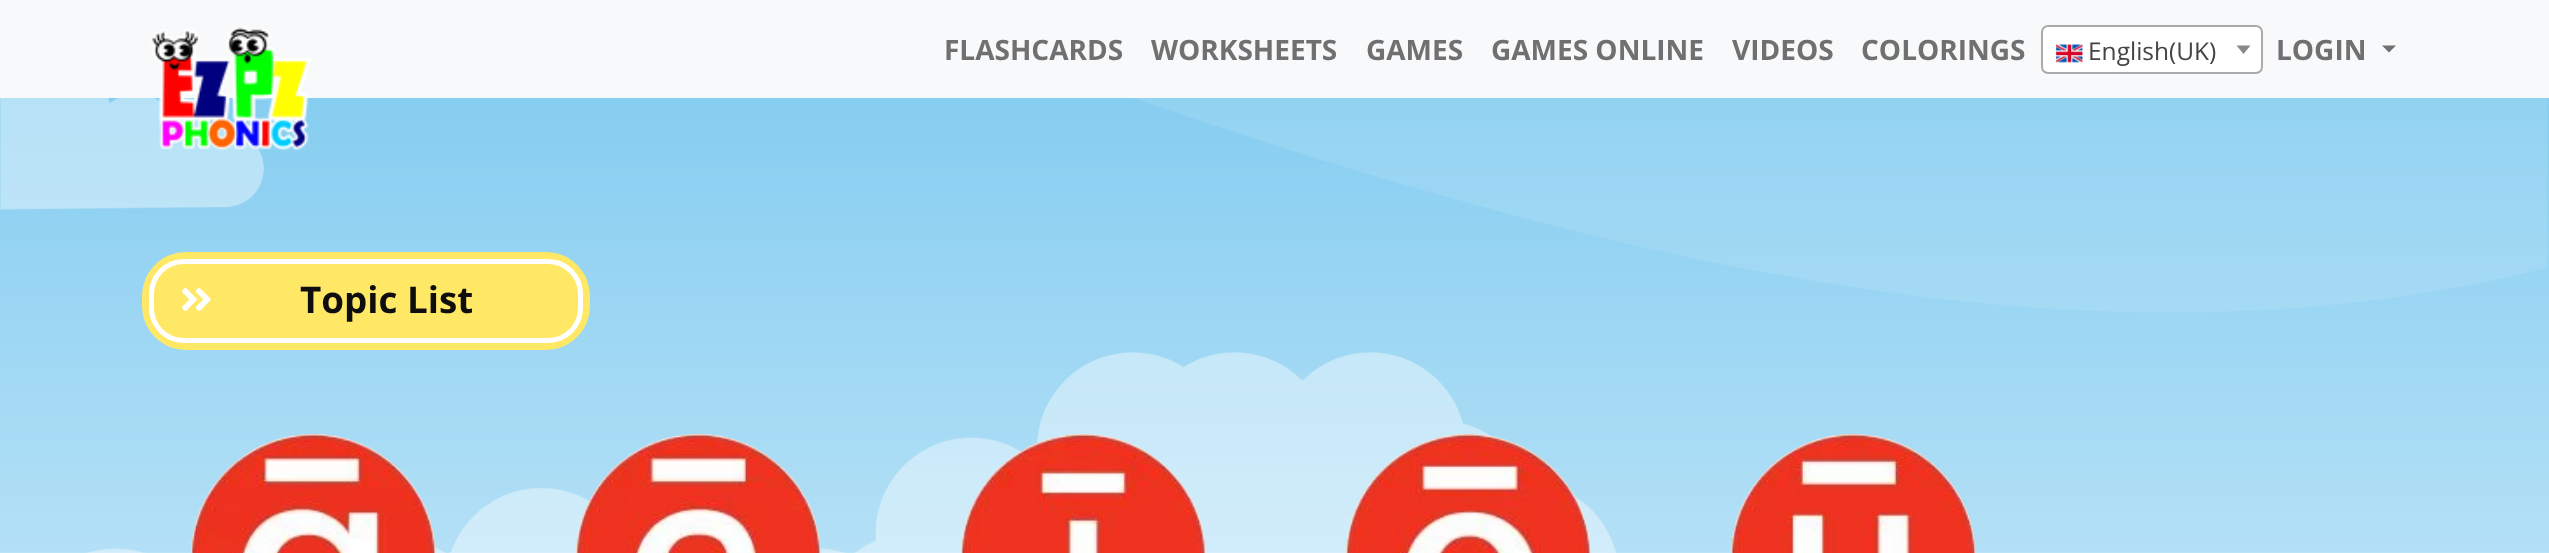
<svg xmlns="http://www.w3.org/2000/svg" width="2549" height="553">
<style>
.a{font:bold 28px Open Sans;fill:#707071}
.b{font:24.5px Open Sans;fill:#444}
.c{font:bold 36.75px Open Sans;fill:#0e0e0e}
</style>
<rect width="100%" height="100%" fill="#fff"/>
<image href="1.png" x="0" y="98" width="2549" height="455"/>
<path fill="#f8f9fa" d="M0 0h2549v98H0z"/>
<image href="2.png" x="150" y="26" width="161" height="125"/>
<rect fill="#fff" stroke="#aaa" stroke-width="2" x="2042" y="26" width="220" height="47" rx="6"/>
<image href="3.png" x="2056" y="44" width="27" height="19"/>
<path fill="#888" d="M2236.5 45.5h14l-7 8.5z"/>
<path fill="#707071" d="M2382 45.5h14l-7 7z"/>
<rect fill="#ffe866" x="142" y="252" width="448" height="98" rx="44"/>
<image href="4.png" x="182" y="288" width="29" height="23"/>
<rect fill="none" stroke="#fff" stroke-width="5" x="151.5" y="261.5" width="429" height="79" rx="32.5"/>
<image href="5.png" x="191" y="434" width="245" height="119"/>
<image href="6.png" x="576" y="434" width="245" height="119"/>
<image href="7.png" x="961" y="434" width="245" height="119"/>
<image href="8.png" x="1346" y="434" width="245" height="119"/>
<image href="9.png" x="1731" y="434" width="245" height="119"/>
<text class="a" x="944" y="60">FLASHCARDS</text>
<text class="a" x="1151" y="60">WORKSHEETS</text>
<text class="a" x="1366" y="60">GAMES</text>
<text class="a" x="1491" y="60">GAMES ONLINE</text>
<text class="a" x="1732" y="60">VIDEOS</text>
<text class="a" x="1861" y="60">COLORINGS</text>
<text class="b" x="2088" y="60">English(UK)</text>
<text class="a" x="2276" y="60">LOGIN</text>
<text class="c" x="300" y="313">Topic List</text>
</svg>
